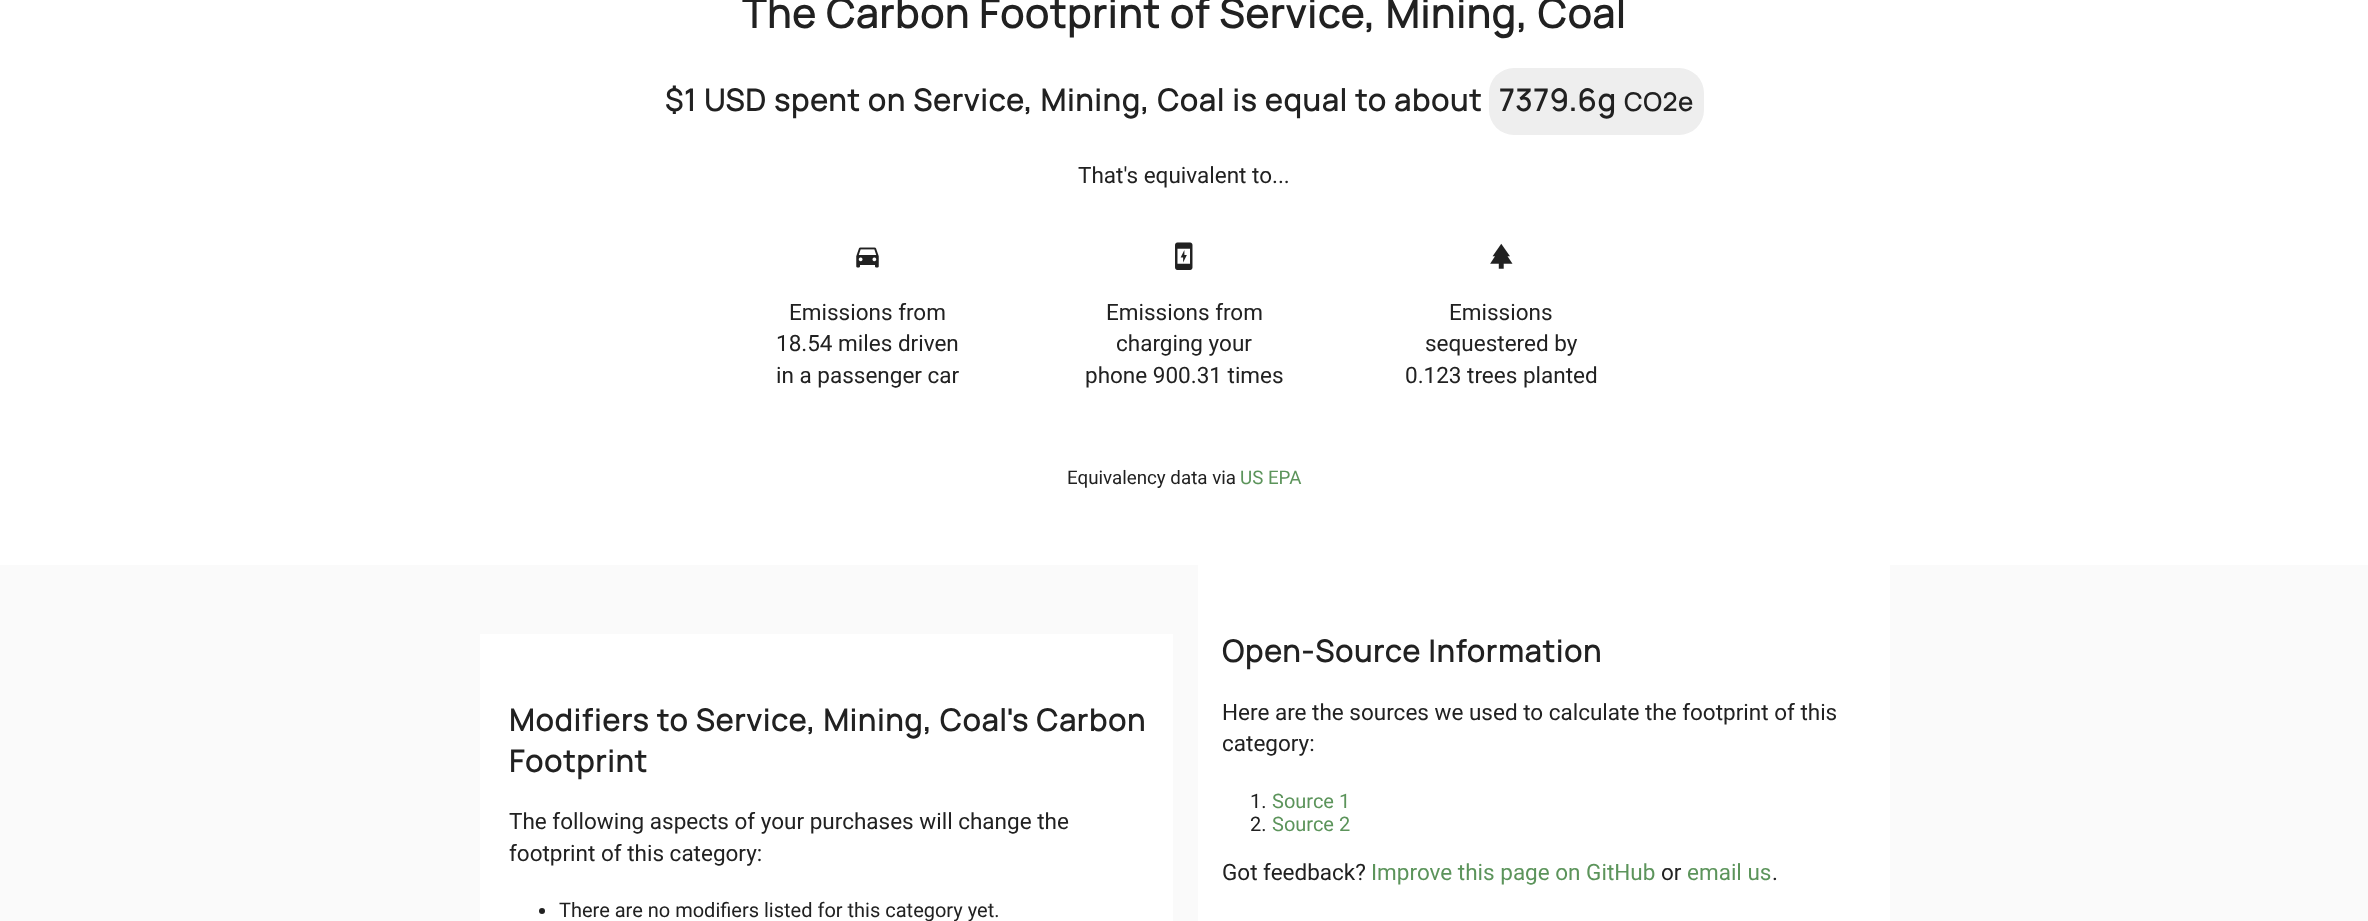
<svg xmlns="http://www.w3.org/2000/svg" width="2368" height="921">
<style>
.a{font:bold 40px Manrope;letter-spacing:1.25px;fill:#212121}
.b{font:bold 30px Manrope;letter-spacing:1.25px;fill:#212121}
.c{font:bold 25px Manrope;letter-spacing:1.25px;fill:#212121}
.d{font:22.5px Roboto;fill:#212121}
.e{font:18.75px Roboto;fill:#212121}
.f{font:18.75px Roboto;fill:#5c945b}
.g{font:20px Roboto;fill:#212121}
.h{font:20px Roboto;fill:#5c945b}
.i{font:22.5px Roboto;fill:#5c945b}
</style>
<rect width="100%" height="100%" fill="#fafafa"/>
<path fill="#fff" d="M0 0h2368v565H0z"/>
<rect fill="#eee" x="1489" y="68" width="215" height="67" rx="25"/>
<image href="1.png" x="856" y="247" width="23" height="21"/>
<image href="2.png" x="1175" y="242" width="18" height="28"/>
<image href="3.png" x="1490" y="243" width="23" height="26"/>
<path fill="#fff" d="M480 634h693v287H480z"/>
<circle fill="#212121" cx="542" cy="911" r="3"/>
<path fill="#fff" d="M1198 565h692v356H1198z"/>
<text class="a" x="742" y="28">The Carbon Footprint of Service, Mining, Coal</text>
<text class="b" x="665" y="111">$1 USD spent on Service, Mining, Coal is equal to about</text>
<text class="b" x="1499" y="111">7379.6g</text>
<text class="c" x="1624" y="111">CO2e</text>
<text class="d" x="1078" y="183">That's equivalent to...</text>
<text class="d" x="789" y="320">Emissions from</text>
<text class="d" x="776" y="351">18.54 miles driven</text>
<text class="d" x="776" y="383">in a passenger car</text>
<text class="d" x="1106" y="320">Emissions from</text>
<text class="d" x="1116" y="351">charging your</text>
<text class="d" x="1085" y="383">phone 900.31 times</text>
<text class="d" x="1449" y="320">Emissions</text>
<text class="d" x="1425" y="351">sequestered by</text>
<text class="d" x="1405" y="383">0.123 trees planted</text>
<text class="e" x="1067" y="484">Equivalency data via</text>
<text class="f" x="1240" y="484">US EPA</text>
<text class="b" x="509" y="731">Modifiers to Service, Mining, Coal's Carbon</text>
<text class="b" x="509" y="772">Footprint</text>
<text class="d" x="509" y="829">The following aspects of your purchases will change the</text>
<text class="d" x="509" y="861">footprint of this category:</text>
<text class="g" x="559" y="917">There are no modifiers listed for this category yet.</text>
<text class="b" x="1222" y="662">Open-Source Information</text>
<text class="d" x="1222" y="720">Here are the sources we used to calculate the footprint of this</text>
<text class="d" x="1222" y="751">category:</text>
<text class="g" x="1250" y="808">1.</text>
<text class="h" x="1272" y="808">Source 1</text>
<text class="g" x="1250" y="831">2.</text>
<text class="h" x="1272" y="831">Source 2</text>
<text class="d" x="1222" y="880">Got feedback?</text>
<text class="i" x="1371" y="880">Improve this page on GitHub</text>
<text class="d" x="1661" y="880">or</text>
<text class="i" x="1687" y="880">email us</text>
<text class="d" x="1772" y="880">.</text>
</svg>
